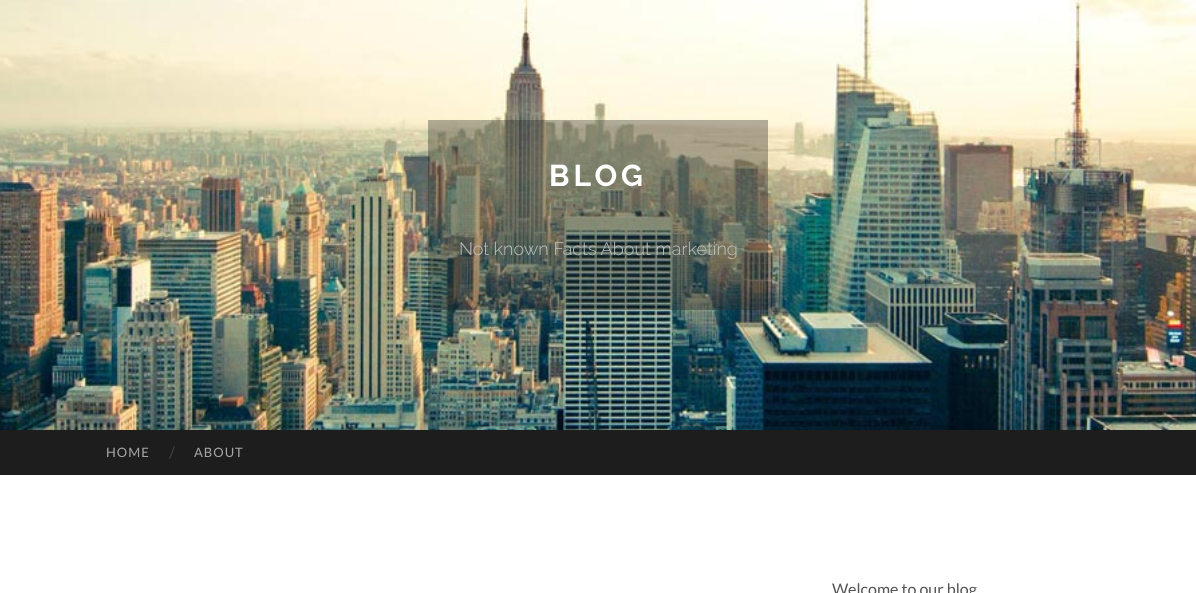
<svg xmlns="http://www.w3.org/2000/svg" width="1196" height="593">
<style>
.a{font:bold 30px Raleway;letter-spacing:4px;fill:#fff}
.b{font:300 18px Raleway;fill:#bcc0bc}
.c{font:13px Lato;letter-spacing:1px;fill:#a5a5a5}
.d{font:16px Lato;fill:#444}
.e{font:16px Lato;fill:#555}
</style>
<rect width="100%" height="100%" fill="#fff"/>
<image href="1.png" x="0" y="0" width="1196" height="430"/>
<path fill="#1d1d1d57" d="M428 120h340v190H428z"/>
<path fill="#ffffff0f" d="M548 216h100v2H548z"/>
<path fill="#1d1d1d" d="M0 430h1196v45H0z"/>
<text class="a" x="549" y="186">BLOG</text>
<text class="b" x="459" y="255">Not known Facts About marketing</text>
<text class="c" x="106" y="457">HOME</text>
<text class="d" x="169" y="458">/</text>
<text class="c" x="194" y="457">ABOUT</text>
<text class="e" x="832" y="595">Welcome to our blog</text>
</svg>
